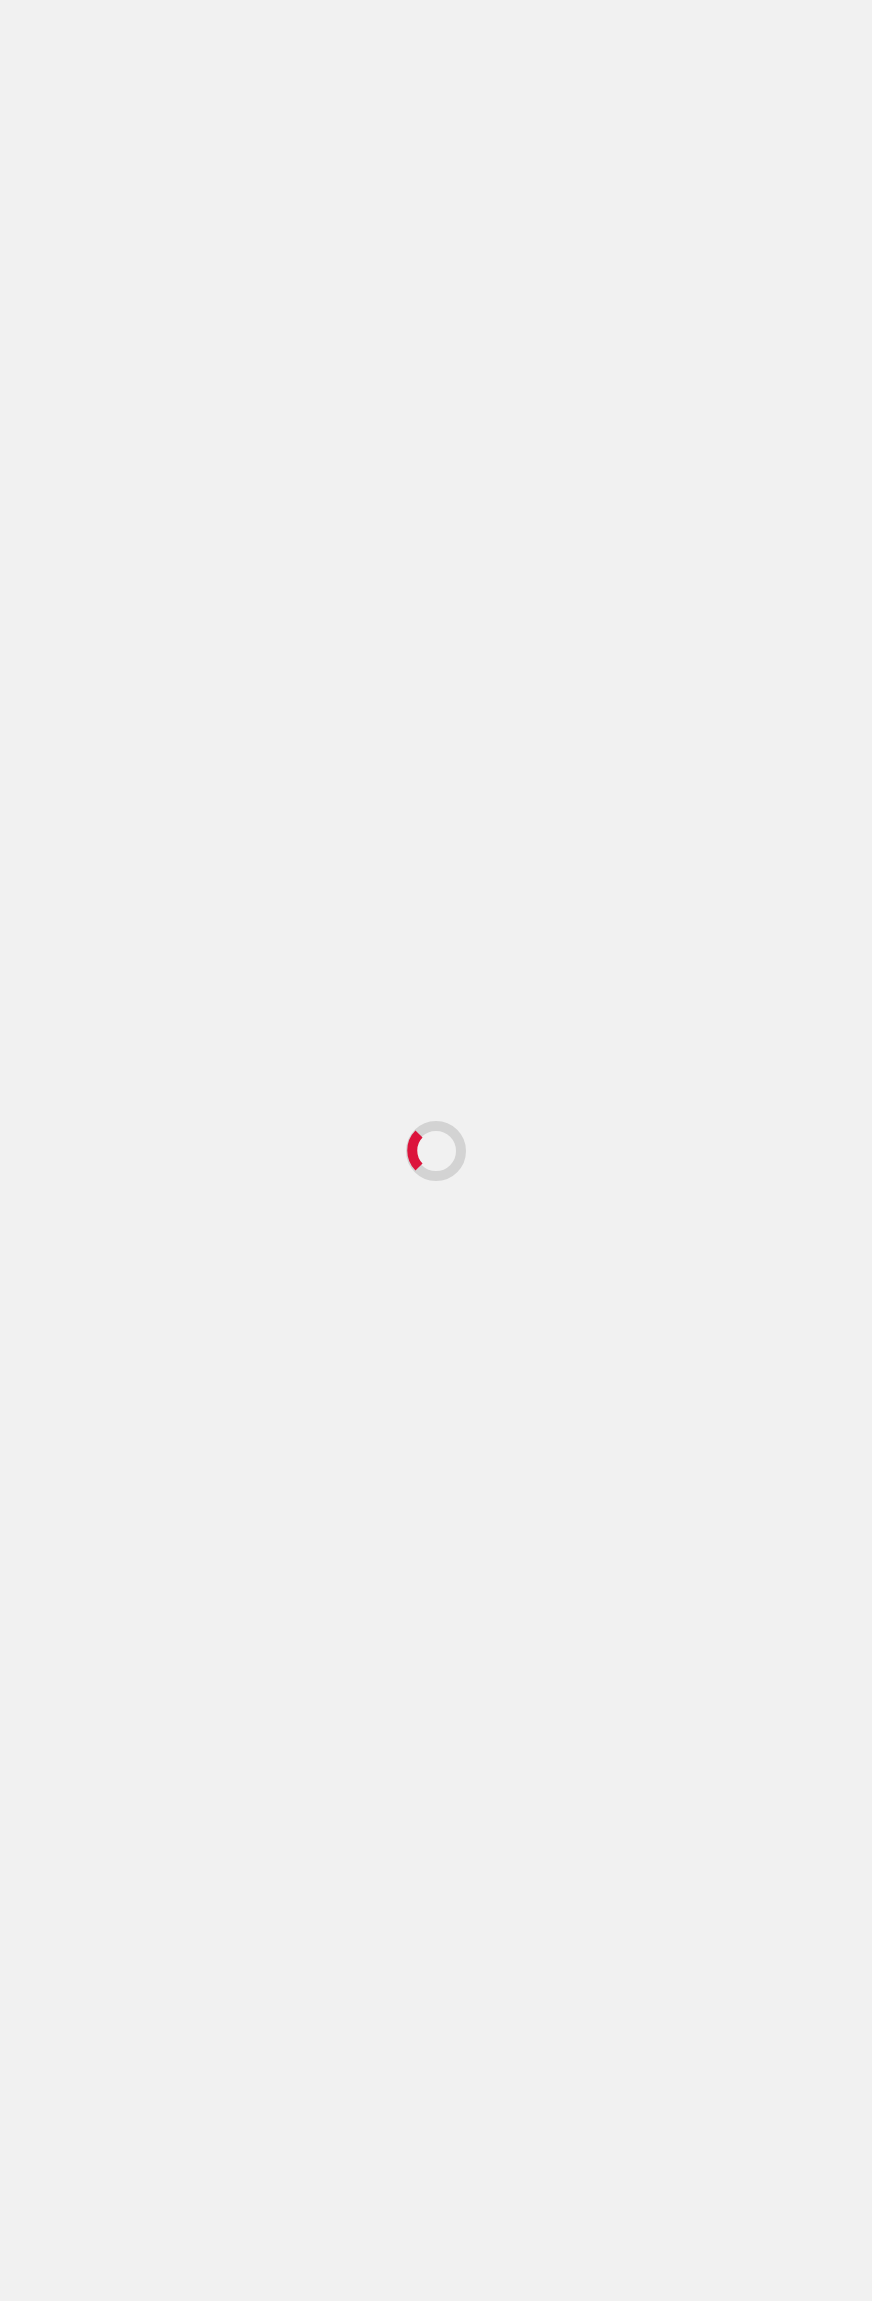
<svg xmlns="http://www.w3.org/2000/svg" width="872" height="2301">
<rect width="100%" height="100%" fill="#f1f1f1"/>
<circle fill="none" stroke="#d3d3d3" stroke-width="10" cx="436" cy="1151" r="25"/>
<path fill="none" stroke="#dc143c" stroke-width="10" d="M419 1167c-9-9-9-24 0-33"/>
</svg>
